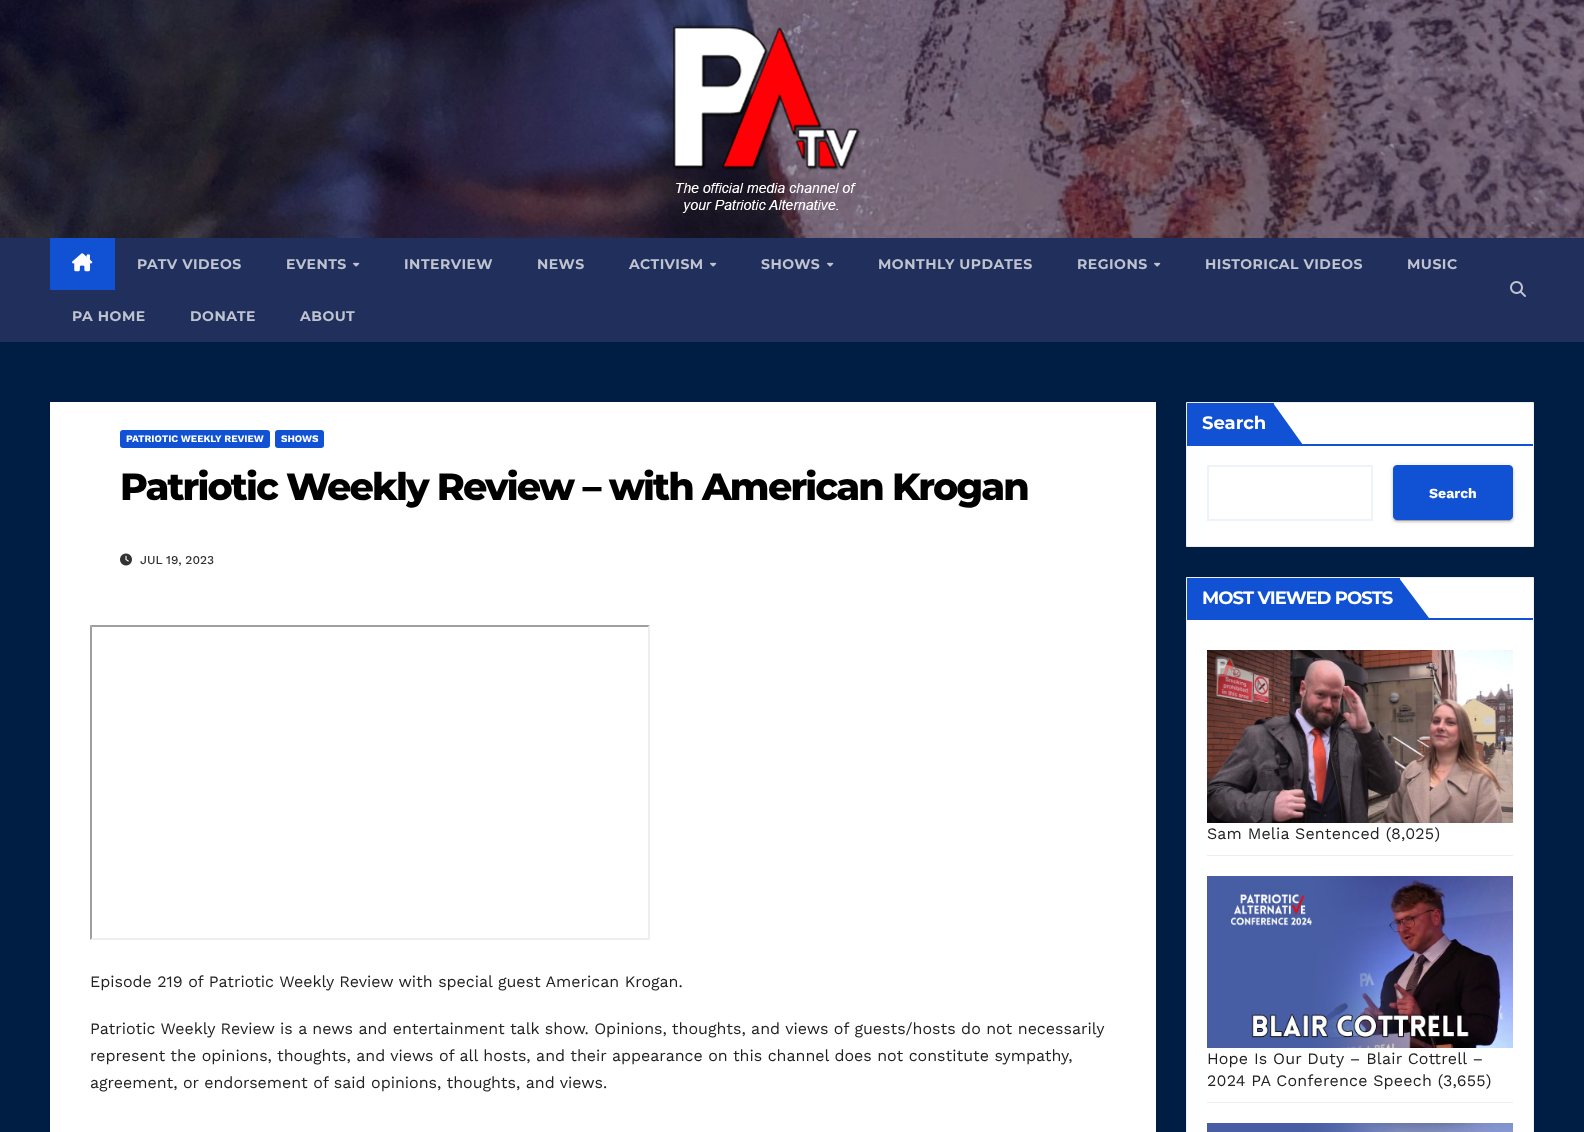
<svg xmlns="http://www.w3.org/2000/svg" width="1584" height="1132">
<style>
.a{font:bold 14px Montserrat;letter-spacing:0.5px;fill:#bec3cf}
.b{font:bold 10px Work Sans;fill:#fff}
.c{font:800 38px Montserrat;letter-spacing:-1.9px;fill:#000}
.d{font:500 12px Work Sans;fill:#333}
.e{font:16px Work Sans;fill:#222}
.f{font:bold 18px Montserrat;fill:#fff}
.g{font:bold 14px Work Sans;fill:#fff}
.h{font:bold 18px Montserrat;letter-spacing:-0.9px;fill:#fff}
.i{font:16px Work Sans;letter-spacing:0.2px;fill:#222}
</style>
<rect width="100%" height="100%" fill="#001d44"/>
<image href="1.png" x="0" y="0" width="1584" height="238"/>
<image href="2.png" x="673" y="25" width="188" height="188"/>
<path fill="#202f5b" d="M0 238h1584v104H0z"/>
<path fill="#1151d3" d="M50 238h65v52H50z"/>
<image href="3.png" x="72" y="253" width="21" height="19"/>
<image href="4.png" x="353" y="262" width="7" height="5"/>
<image href="4.png" x="710" y="262" width="7" height="5"/>
<image href="4.png" x="827" y="262" width="7" height="5"/>
<image href="4.png" x="1154" y="262" width="7" height="5"/>
<image href="5.png" x="1510" y="281" width="16" height="16"/>
<path fill="#00000026" filter="blur(1.5px)" d="M50 403h1106v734H50z"/>
<path fill="#fff" d="M50 402h1106v730H50z"/>
<rect fill="#1151d3" x="120" y="430" width="150" height="18" rx="3"/>
<rect fill="#1151d3" x="275" y="430" width="49" height="18" rx="3"/>
<image href="6.png" x="120" y="553" width="12" height="13"/>
<path fill="#9f9f9f" d="M90 625h560l-2 2h-556z"/>
<path fill="#eee" d="M650 625v315l-2-2v-311z"/>
<path fill="#eee" d="M650 940h-560l2-2h556z"/>
<path fill="#9f9f9f" d="M90 940v-315l2 2v311z"/>
<path fill="#fff" stroke="#eee" d="M1186.5 402.5h347v144H1186.5z"/>
<path fill="#1151d3" d="M1187 403h87v41H1187z"/>
<path fill="#1151d3" d="M1273 445v-42l30 42z"/>
<path fill="#1151d3" d="M1187 444h346v2H1187z"/>
<path fill="none" stroke="#eef3fb" stroke-width="2" d="M1208 466h164v54H1208z"/>
<rect fill="#0000001f" filter="blur(2.5px)" x="1393" y="466" width="120" height="55" rx="4"/>
<rect fill="#00000033" filter="blur(0.5px)" x="1395" y="470" width="116" height="51" rx="2"/>
<rect fill="#00000024" filter="blur(1px)" x="1393" y="467" width="120" height="55" rx="4"/>
<rect fill="#1151d3" stroke="#1151d3" x="1393.5" y="465.5" width="119" height="54" rx="3.5"/>
<path fill="#fff" stroke="#eee" d="M1186.5 577.5h347v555H1186.5z"/>
<path fill="#1151d3" d="M1187 618h346v2H1187z"/>
<path fill="#1151d3" d="M1187 578h213v40H1187z"/>
<path fill="#1151d3" d="M1399 618v-40l30 40z"/>
<path fill="#eee" d="M1207 855h306v1H1207z"/>
<image href="7.png" x="1207" y="650" width="306" height="173"/>
<path fill="#eee" d="M1207 1102h306v1H1207z"/>
<image href="8.png" x="1207" y="876" width="306" height="172"/>
<image href="9.png" x="1207" y="1123" width="306" height="9"/>
<text class="a" x="137" y="269">PATV VIDEOS</text>
<text class="a" x="286" y="269">EVENTS</text>
<text class="a" x="404" y="269">INTERVIEW</text>
<text class="a" x="537" y="269">NEWS</text>
<text class="a" x="629" y="269">ACTIVISM</text>
<text class="a" x="761" y="269">SHOWS</text>
<text class="a" x="878" y="269">MONTHLY UPDATES</text>
<text class="a" x="1077" y="269">REGIONS</text>
<text class="a" x="1205" y="269">HISTORICAL VIDEOS</text>
<text class="a" x="1407" y="269">MUSIC</text>
<text class="a" x="72" y="321">PA HOME</text>
<text class="a" x="190" y="321">DONATE</text>
<text class="a" x="300" y="321">ABOUT</text>
<text class="b" x="126" y="442">PATRIOTIC WEEKLY REVIEW</text>
<text class="b" x="281" y="442">SHOWS</text>
<text class="c" x="120" y="500">Patriotic Weekly Review – with American Krogan</text>
<text class="d" x="140" y="564">JUL 19, 2023</text>
<text class="e" x="90" y="987">Episode 219 of Patriotic Weekly Review with special guest American Krogan.</text>
<text class="e" x="90" y="1034">Patriotic Weekly Review is a news and entertainment talk show. Opinions, thoughts, and views of guests/hosts do not necessarily</text>
<text class="e" x="90" y="1061">represent the opinions, thoughts, and views of all hosts, and their appearance on this channel does not constitute sympathy,</text>
<text class="e" x="90" y="1088">agreement, or endorsement of said opinions, thoughts, and views.</text>
<text class="f" x="1202" y="429">Search</text>
<text class="g" x="1429" y="498">Search</text>
<text class="h" x="1202" y="604">MOST VIEWED POSTS</text>
<text class="i" x="1207" y="839">Sam Melia Sentenced (8,025)</text>
<text class="i" x="1207" y="1064">Hope Is Our Duty – Blair Cottrell –</text>
<text class="i" x="1207" y="1086">2024 PA Conference Speech (3,655)</text>
</svg>
